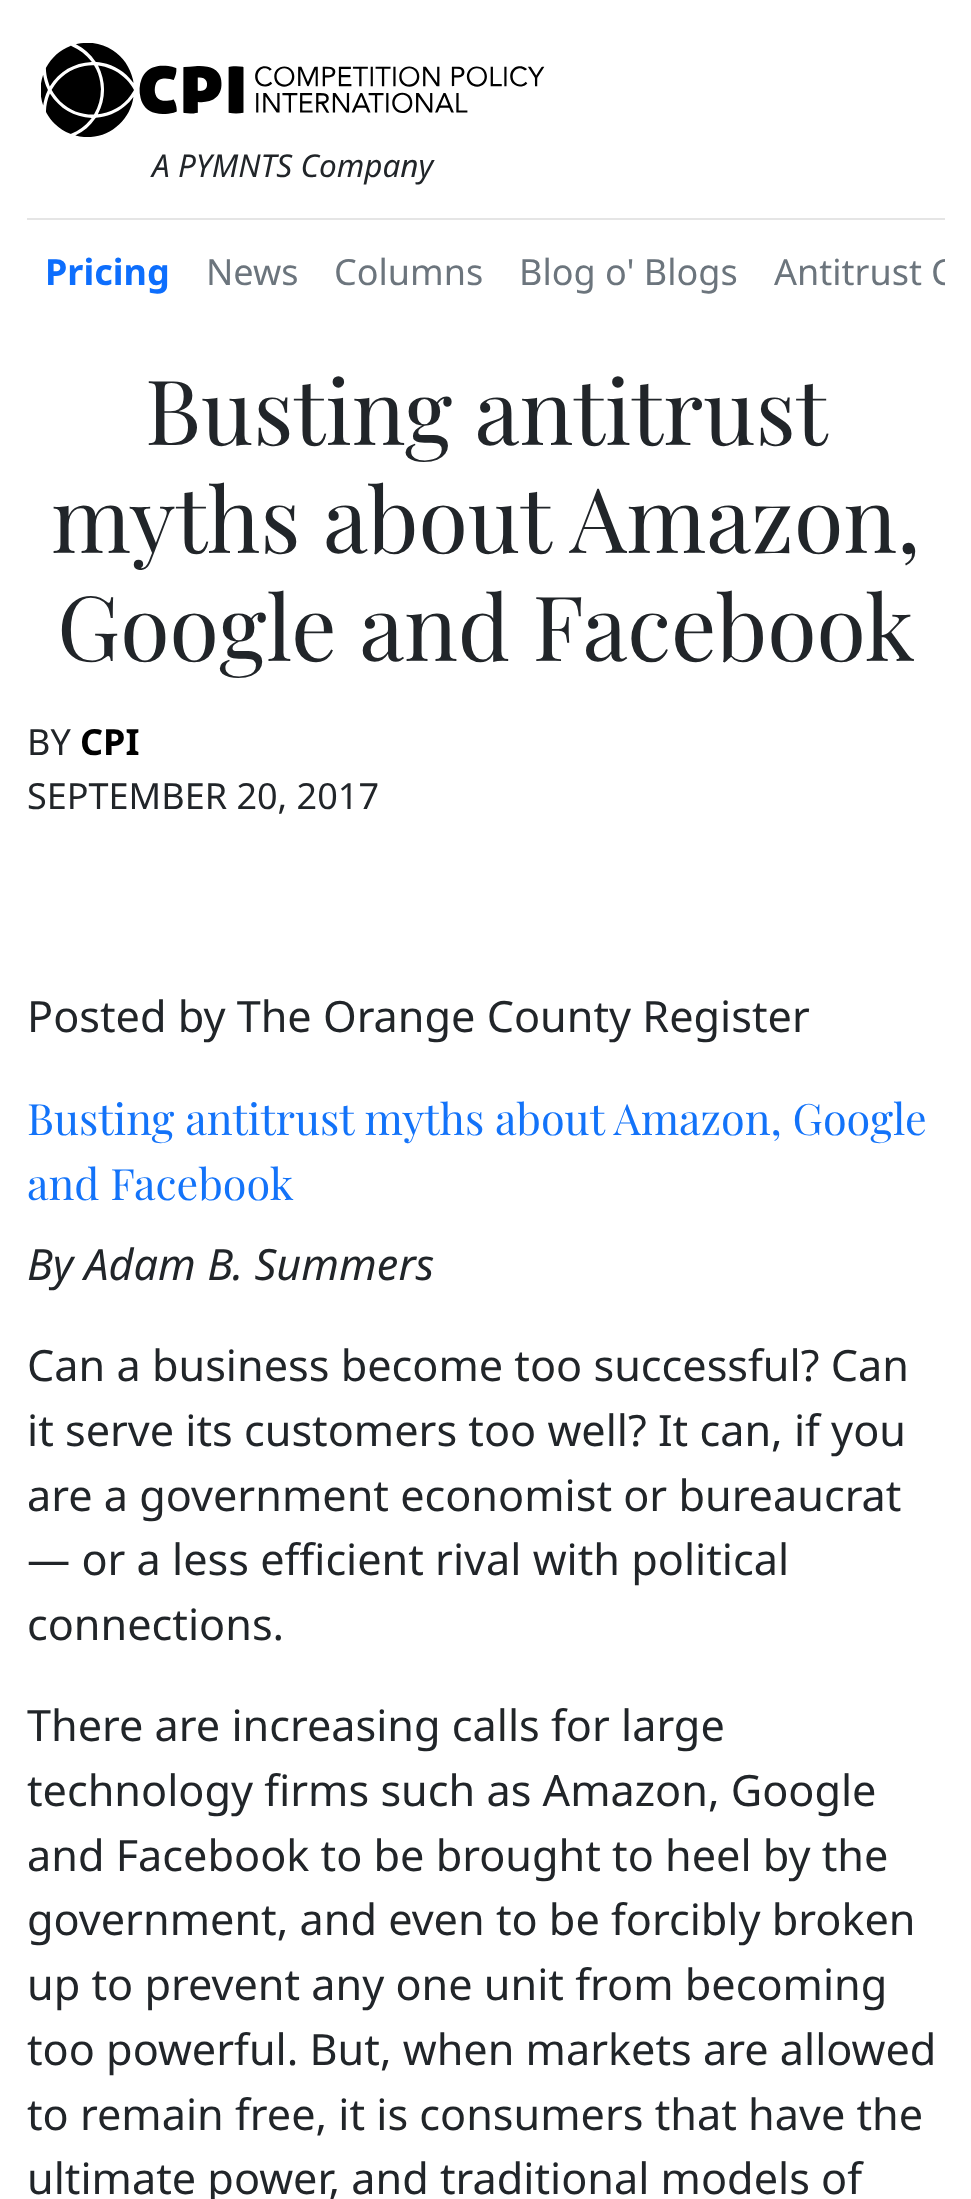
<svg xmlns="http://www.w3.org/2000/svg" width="971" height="2199">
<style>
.a{font:italic 31.5px Noto Sans;fill:#212529}
.b{font:bold 36px Noto Sans;fill:#0d6efd}
.c{font:36px Noto Sans;fill:#6c757d}
.d{font:90px Playfair Display;fill:#212529}
.e{font:36px Noto Sans;fill:#212529}
.f{font:bold 36px Noto Sans;fill:#000}
.g{font:43.2px Noto Sans;fill:#212529}
.h{font:43.2px Playfair Display;fill:#1373f9}
.i{font:italic 43.2px Noto Sans;fill:#212529}
</style>
<defs>
<clipPath id="clip1"><path d="M27 227h918v93H27z"/></clipPath>
</defs>
<rect width="100%" height="100%" fill="#fff"/>
<path fill="#e5e5e5" d="M27 218h918v2H27z"/>
<image href="1.png" x="41" y="43" width="504" height="94"/>
<text class="a" x="152" y="177">A PYMNTS Company</text>
<text class="b" x="45" y="285">Pricing</text>
<text class="c" x="206" y="285">News</text>
<text class="c" x="334" y="285">Columns</text>
<text class="c" x="519" y="285">Blog o' Blogs</text>
<text class="c" x="774" y="285">Antitrust</text>
<g clip-path="url(#clip1)">
<text class="c" x="931" y="285">C</text>
</g>
<text class="d" x="145" y="445">Busting antitrust</text>
<text class="d" x="51" y="553">myths about Amazon,</text>
<text class="d" x="57" y="661">Google and Facebook</text>
<text class="e" x="27" y="755">BY</text>
<text class="f" x="80" y="755">CPI</text>
<text class="e" x="27" y="809">SEPTEMBER 20, 2017</text>
<text class="g" x="27" y="1032">Posted by The Orange County Register</text>
<text class="h" x="27" y="1135">Busting antitrust myths about Amazon, Google</text>
<text class="h" x="27" y="1200">and Facebook</text>
<text class="i" x="27" y="1280">By Adam B. Summers</text>
<text class="g" x="27" y="1381">Can a business become too successful? Can</text>
<text class="g" x="27" y="1446">it serve its customers too well? It can, if you</text>
<text class="g" x="27" y="1511">are a government economist or bureaucrat</text>
<text class="g" x="27" y="1575">— or a less efficient rival with political</text>
<text class="g" x="27" y="1640">connections.</text>
<text class="g" x="27" y="1741">There are increasing calls for large</text>
<text class="g" x="27" y="1806">technology firms such as Amazon, Google</text>
<text class="g" x="27" y="1871">and Facebook to be brought to heel by the</text>
<text class="g" x="27" y="1935">government, and even to be forcibly broken</text>
<text class="g" x="27" y="2000">up to prevent any one unit from becoming</text>
<text class="g" x="27" y="2065">too powerful. But, when markets are allowed</text>
<text class="g" x="27" y="2130">to remain free, it is consumers that have the</text>
<text class="g" x="27" y="2194">ultimate power, and traditional models of</text>
</svg>
